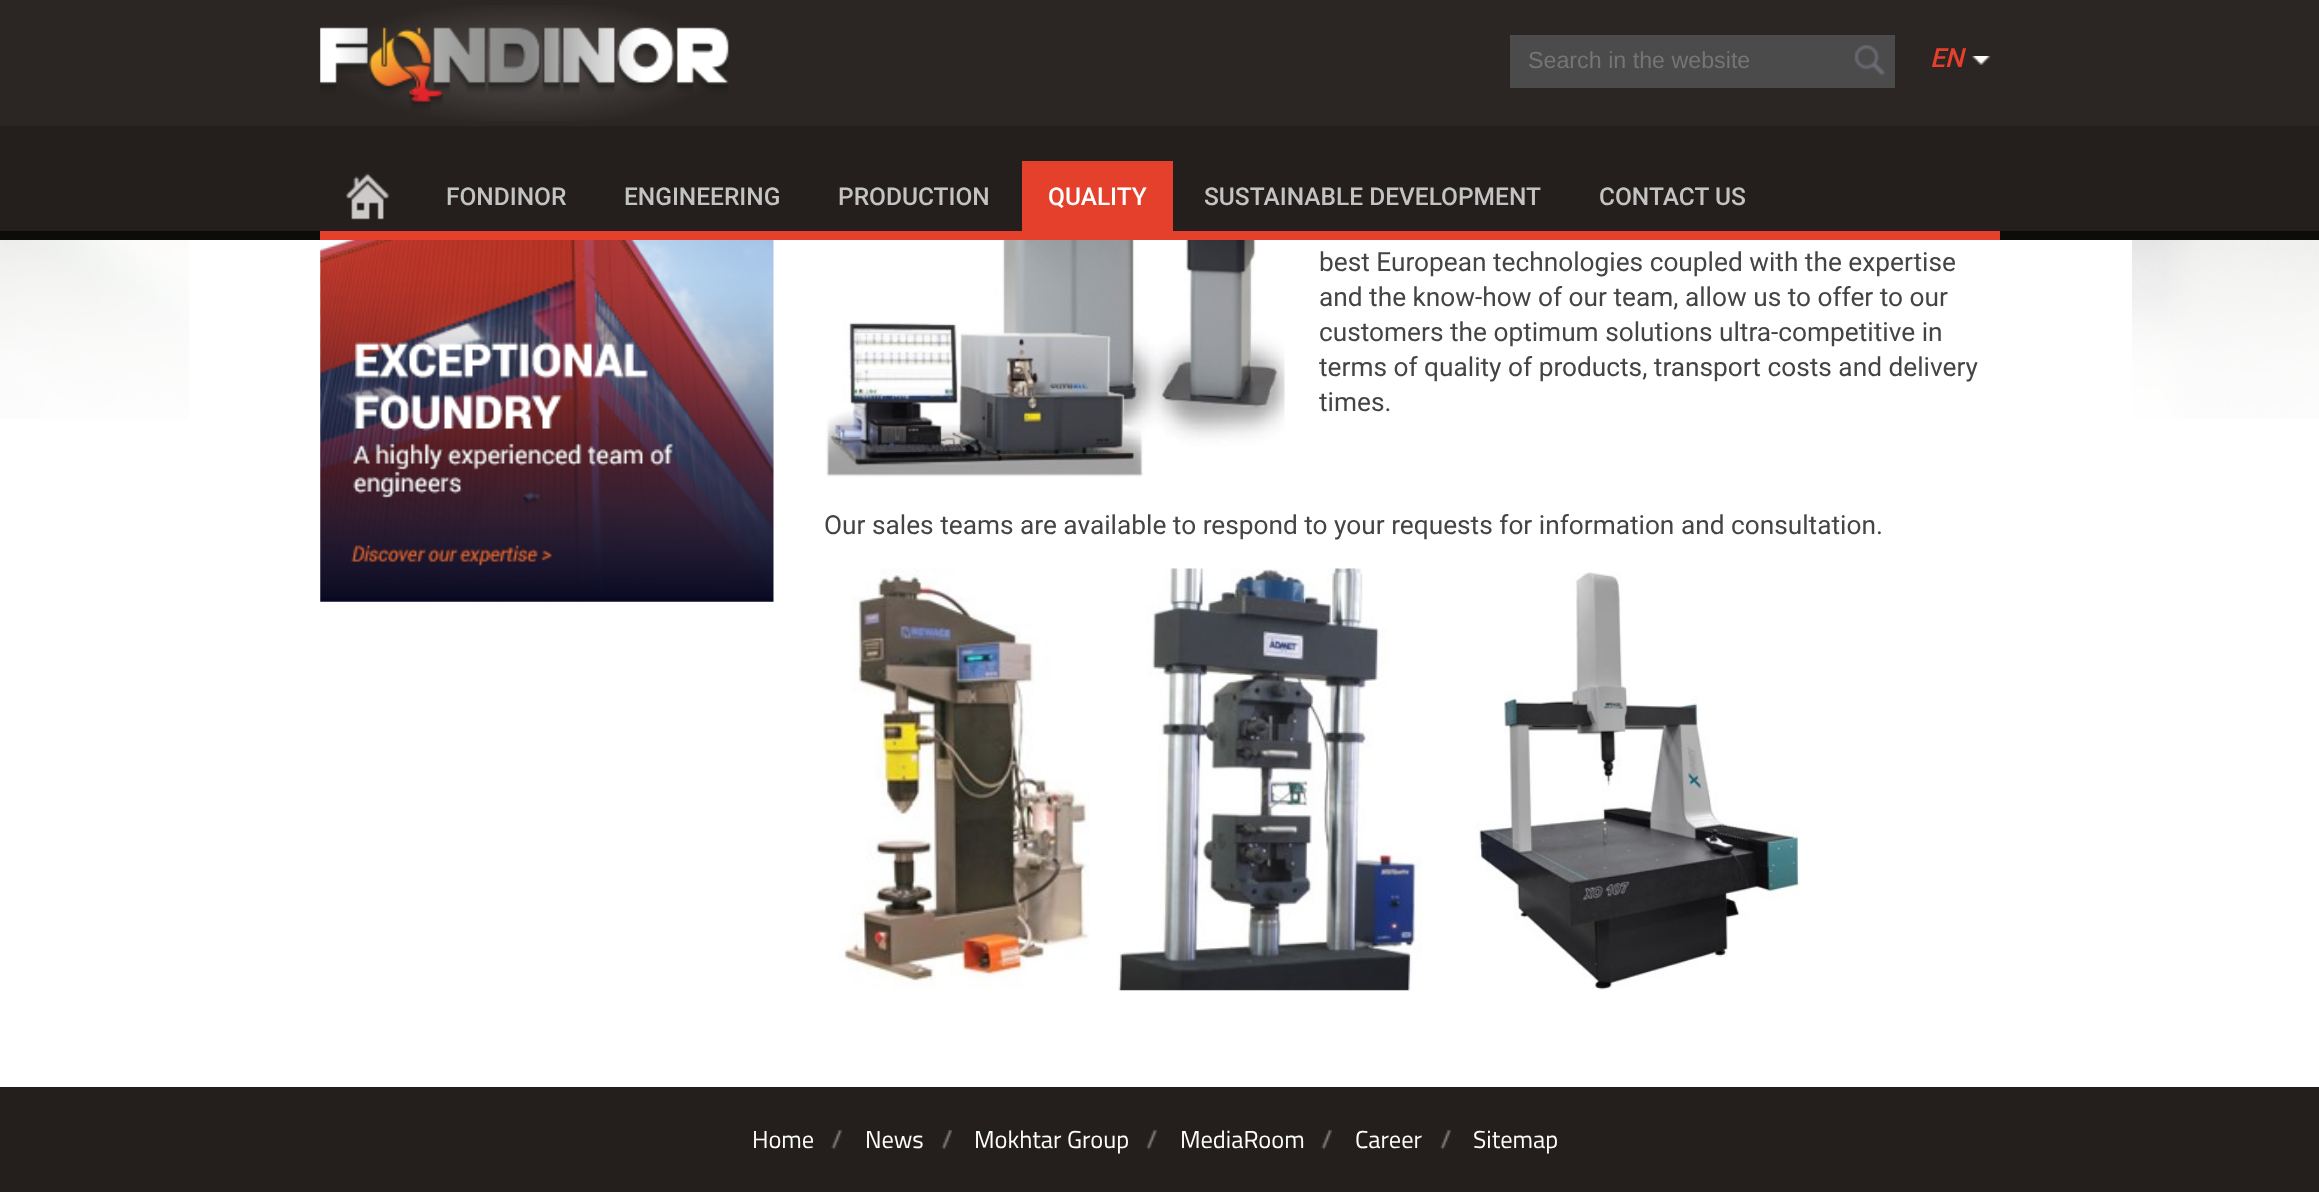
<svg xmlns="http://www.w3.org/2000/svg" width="2319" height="1194">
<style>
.a{font:23.25px Liberation Sans;fill:#757575}
.b{font:italic 500 26.25px Roboto;fill:#e5402b}
.c{font:500 24.5px Roboto;fill:#c3c3c3}
.d{font:500 24.5px Roboto;fill:#fff}
.e{font:26.25px Roboto;fill:#444}
.f{font:24.5px Titillium Web;fill:#fff}
</style>
<rect width="100%" height="100%" fill="#fff"/>
<path fill="#2b2523" d="M0 0h2319v126H0z"/>
<image href="1.png" x="320" y="5" width="409" height="116"/>
<path fill="#4b4b4b" d="M1510 35h385v53H1510z"/>
<image href="2.png" x="1854" y="45" width="31" height="31"/>
<image href="3.png" x="1972" y="56" width="19" height="9"/>
<path fill="#241f1d" d="M0 126h2319v105H0z"/>
<path fill="#0e0c0b" d="M0 231h2319v9H0z"/>
<path fill="#e5402b" d="M320 231h1680v9H320z"/>
<image href="4.png" x="346" y="173" width="43" height="47"/>
<path fill="#e5402b" d="M1022 161h151v70H1022z"/>
<image href="5.png" x="0" y="240" width="2319" height="179"/>
<path fill="#fff" d="M189 240h1943v179H189z"/>
<image href="6.png" x="320" y="240" width="454" height="362"/>
<image href="7.png" x="825" y="240" width="460" height="237"/>
<image href="8.png" x="839" y="568" width="251" height="421"/>
<image href="9.png" x="1117" y="568" width="305" height="423"/>
<image href="10.png" x="1475" y="572" width="326" height="418"/>
<path fill="#241f1d" d="M0 1087h2319v105H0z"/>
<image href="11.png" x="831" y="1130" width="11" height="20"/>
<image href="12.png" x="941" y="1130" width="11" height="20"/>
<image href="11.png" x="1146" y="1130" width="11" height="20"/>
<image href="11.png" x="1321" y="1130" width="11" height="20"/>
<image href="11.png" x="1440" y="1130" width="11" height="20"/>
<text class="a" x="1528" y="68">Search in the website</text>
<text class="b" x="1930" y="67">EN</text>
<text class="c" x="446" y="205">FONDINOR</text>
<text class="c" x="624" y="205">ENGINEERING</text>
<text class="c" x="838" y="205">PRODUCTION</text>
<text class="d" x="1048" y="205">QUALITY</text>
<text class="c" x="1204" y="205">SUSTAINABLE DEVELOPMENT</text>
<text class="c" x="1599" y="205">CONTACT US</text>
<text class="e" x="1319" y="271">best European technologies coupled with the expertise</text>
<text class="e" x="1319" y="306">and the know-how of our team, allow us to offer to our</text>
<text class="e" x="1319" y="341">customers the optimum solutions ultra-competitive in</text>
<text class="e" x="1319" y="376">terms of quality of products, transport costs and delivery</text>
<text class="e" x="1319" y="411">times.</text>
<text class="e" x="824" y="534">Our sales teams are available to respond to your requests for information and consultation.</text>
<text class="f" x="752" y="1148">Home</text>
<text class="f" x="865" y="1148">News</text>
<text class="f" x="974" y="1148">Mokhtar Group</text>
<text class="f" x="1180" y="1148">MediaRoom</text>
<text class="f" x="1355" y="1148">Career</text>
<text class="f" x="1473" y="1148">Sitemap</text>
</svg>
